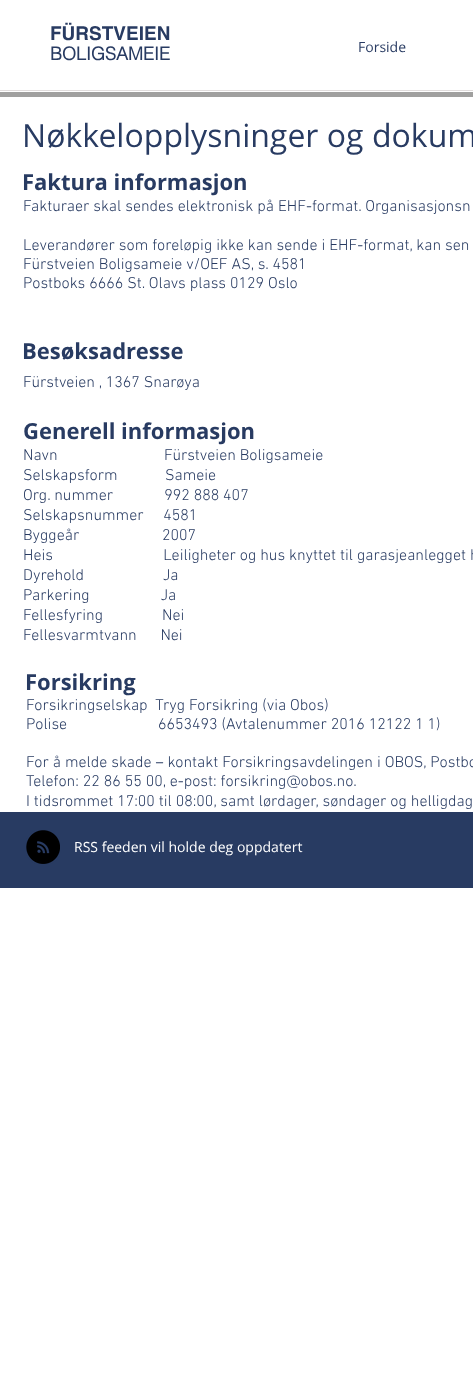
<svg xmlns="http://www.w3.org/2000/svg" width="473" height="1392">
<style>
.a{font:bold 19px helvetica;fill:#283b62}
.b{font:bold 18px 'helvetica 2';fill:#283b62}
.c{font:14px Open Sans;fill:#283b62}
.d{font:32px Open Sans;fill:#283b62}
.e{font:bold 22px Open Sans;fill:#283b62}
.f{font:300 16px 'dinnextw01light';fill:#283b62}
.g{font:14px Open Sans;fill:#fff}
</style>
<rect width="100%" height="100%" fill="#fff"/>
<path fill="#a0a09f" d="M0 92h473v5H0z"/>
<path fill="#e0dcdc" d="M0 90h473v1H0z"/>
<path fill="#283b62" d="M0 812h473v76H0z"/>
<image href="1.png" x="26" y="830" width="34" height="34"/>
<text class="a" x="50" y="40">FÜRSTVEIEN</text>
<text class="b" x="50" y="60">BOLIGSAMEIE</text>
<text class="c" x="358" y="52">Forside</text>
<text class="d" x="22" y="147">Nøkkelopplysninger og dokum</text>
<text class="e" x="22" y="190">Faktura informasjon</text>
<text class="f" x="23" y="211">Fakturaer skal sendes elektronisk på EHF-format. Organisasjonsn</text>
<text class="f" x="23" y="250">Leverandører som foreløpig ikke kan sende i EHF-format, kan sen</text>
<text class="f" x="23" y="269">Fürstveien Boligsameie v/OEF AS, s. 4581</text>
<text class="f" x="23" y="288">Postboks 6666 St. Olavs plass 0129 Oslo</text>
<text class="e" x="22" y="359">Besøksadresse</text>
<text class="f" x="23" y="387">Fürstveien , 1367 Snarøya</text>
<text class="e" x="23" y="439">Generell informasjon</text>
<text class="f" xml:space="preserve" x="23" y="460">Navn                           Fürstveien Boligsameie</text>
<text class="f" xml:space="preserve" x="23" y="480">Selskapsform            Sameie</text>
<text class="f" xml:space="preserve" x="23" y="500">Org. nummer             992 888 407</text>
<text class="f" xml:space="preserve" x="23" y="520">Selskapsnummer     4581</text>
<text class="f" xml:space="preserve" x="23" y="540">Byggeår                     2007</text>
<text class="f" xml:space="preserve" x="23" y="560">Heis                            Leiligheter og hus knyttet til garasjeanlegget h</text>
<text class="f" xml:space="preserve" x="23" y="580">Dyrehold                    Ja</text>
<text class="f" xml:space="preserve" x="23" y="600">Parkering                  Ja</text>
<text class="f" xml:space="preserve" x="23" y="620">Fellesfyring               Nei</text>
<text class="f" xml:space="preserve" x="23" y="640">Fellesvarmtvann      Nei</text>
<text class="e" x="25" y="690">Forsikring</text>
<text class="f" xml:space="preserve" x="26" y="710">Forsikringselskap  Tryg Forsikring (via Obos)</text>
<text class="f" x="26" y="729">Polise</text>
<text class="f" x="158" y="729">6653493 (Avtalenummer 2016 12122 1 1)</text>
<text class="f" x="26" y="767">For å melde skade – kontakt Forsikringsavdelingen i OBOS, Postbo</text>
<text class="f" x="26" y="786">Telefon: 22 86 55 00, e-post: forsikring@obos.no.</text>
<text class="f" x="26" y="806">I tidsrommet 17:00 til 08:00, samt lørdager, søndager og helligdag</text>
<text class="g" x="74" y="852">RSS feeden vil holde deg oppdatert</text>
</svg>
